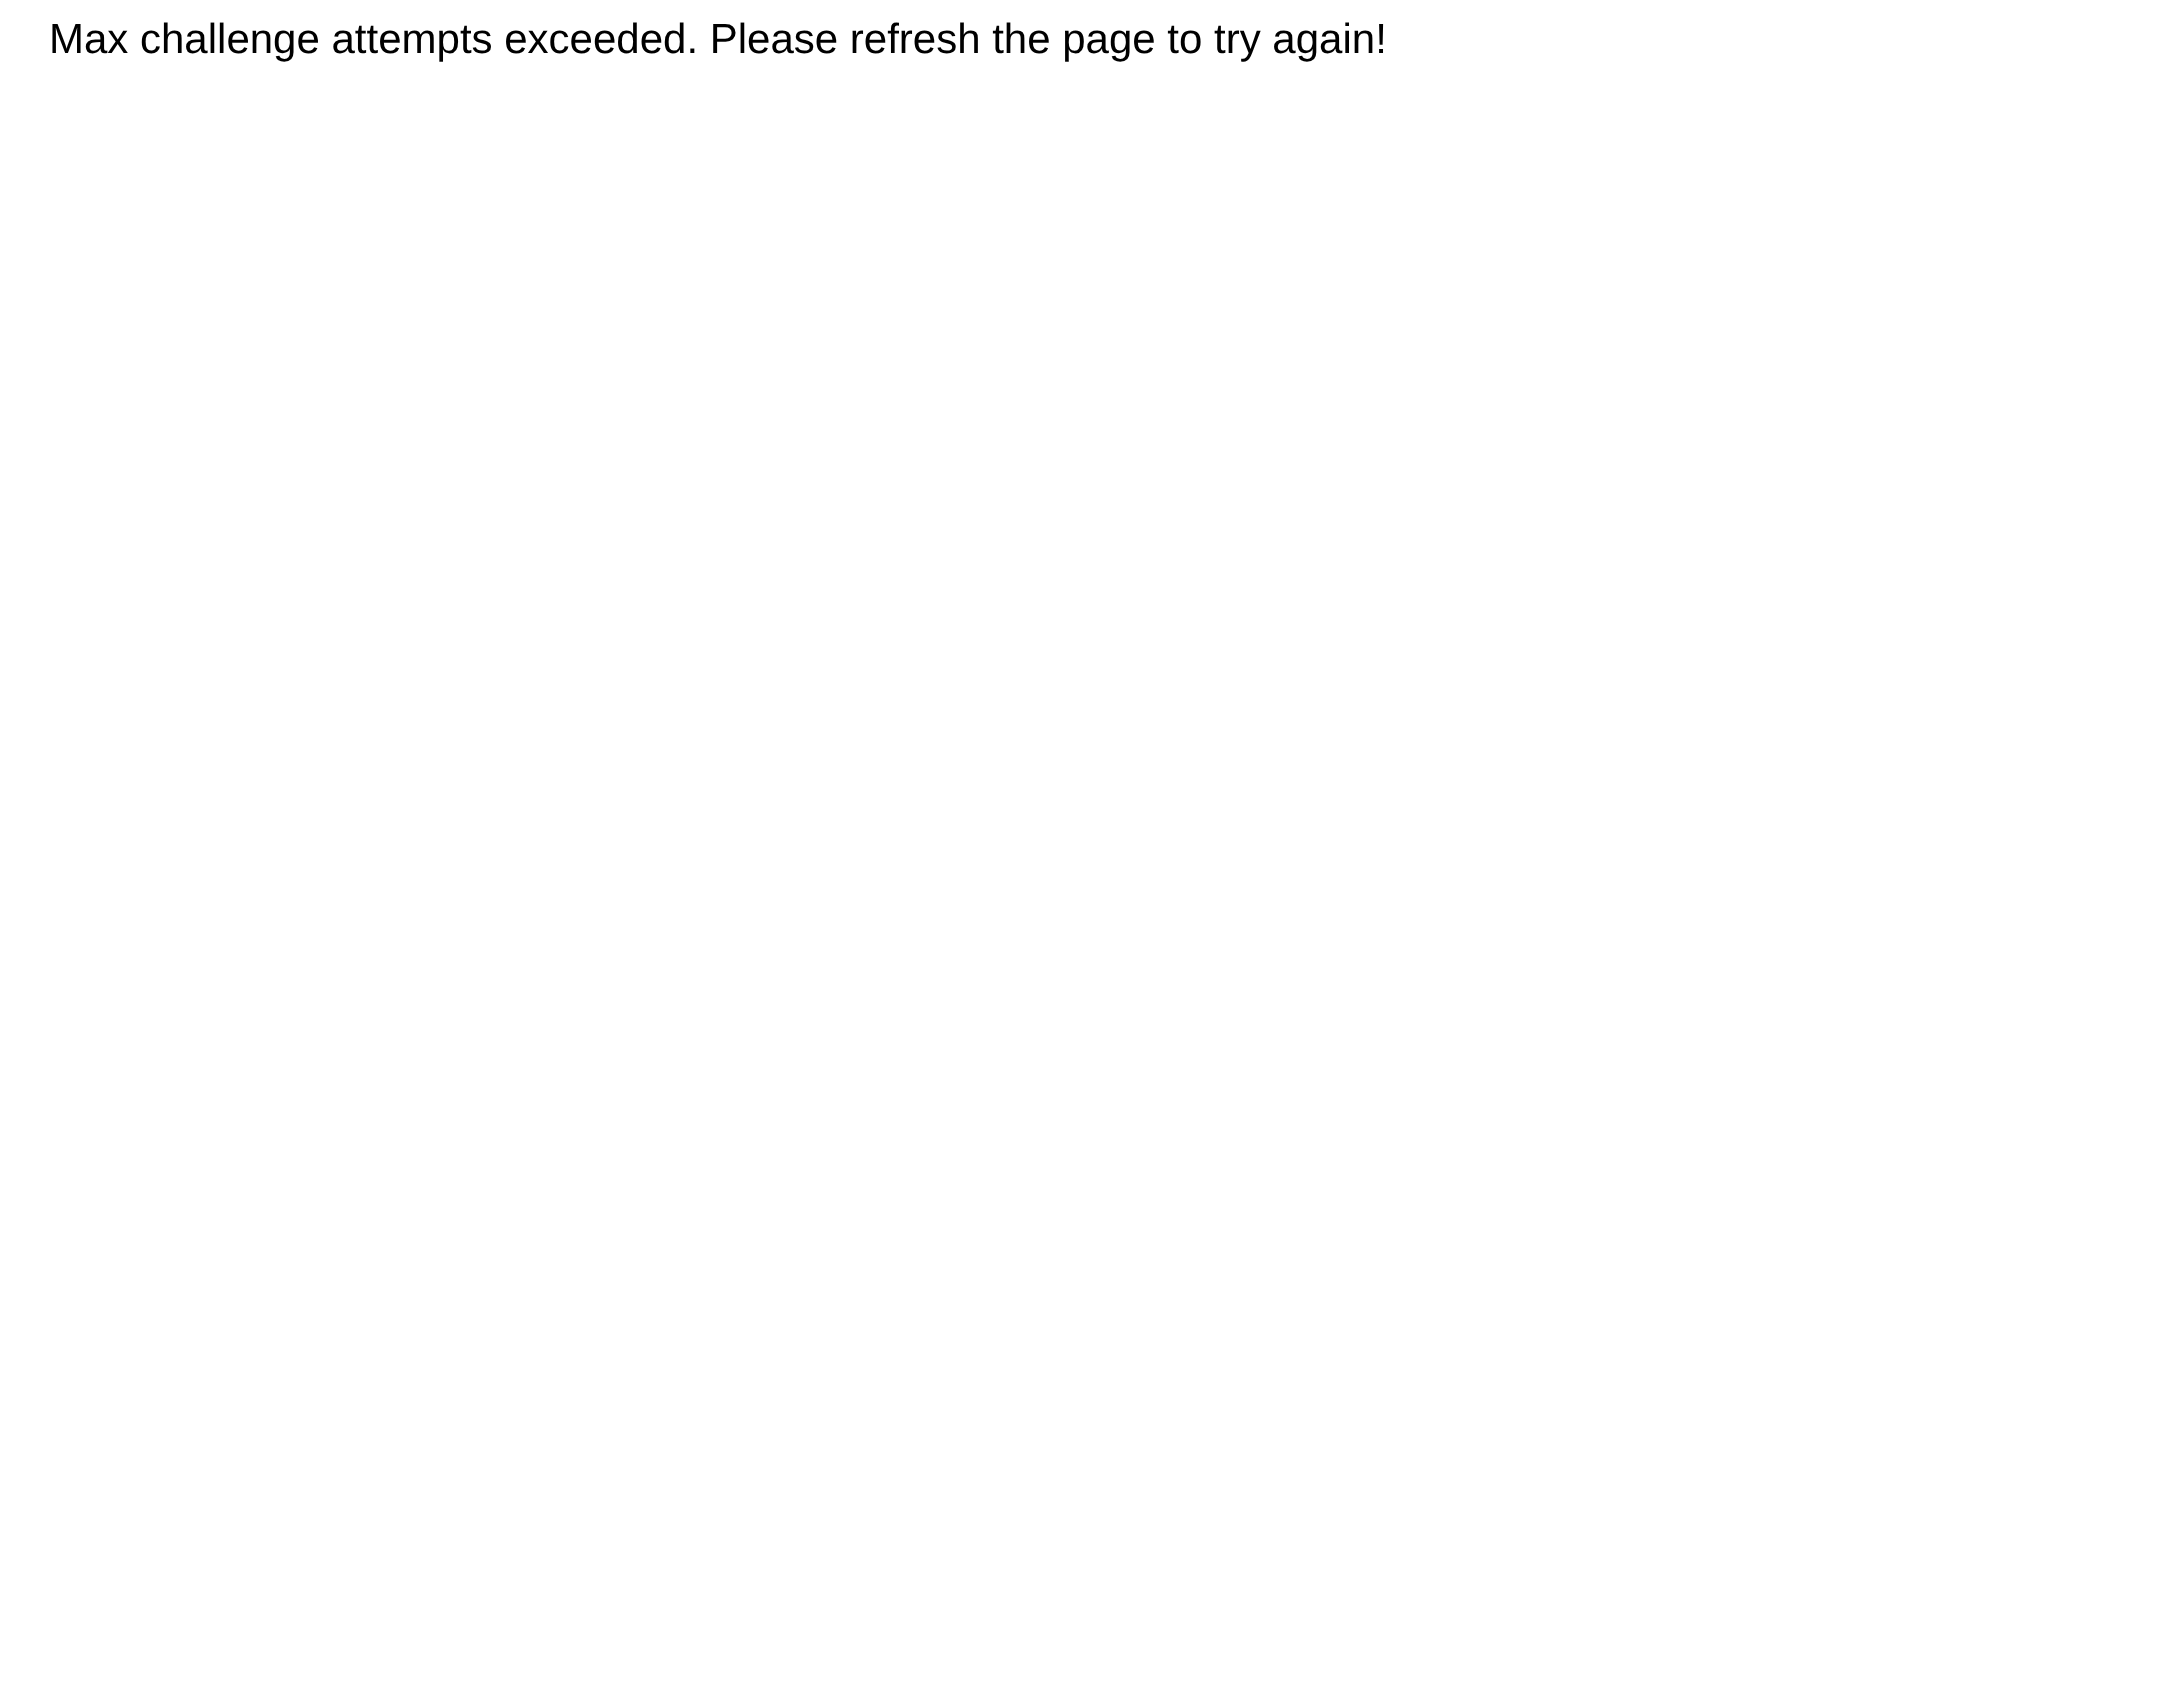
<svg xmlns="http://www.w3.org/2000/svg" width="2167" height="1690">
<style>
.a{font:42px Liberation Sans;fill:#000}
</style>
<rect width="100%" height="100%" fill="#fff"/>
<text class="a" x="49" y="53">Max challenge attempts exceeded. Please refresh the page to try again!</text>
</svg>
